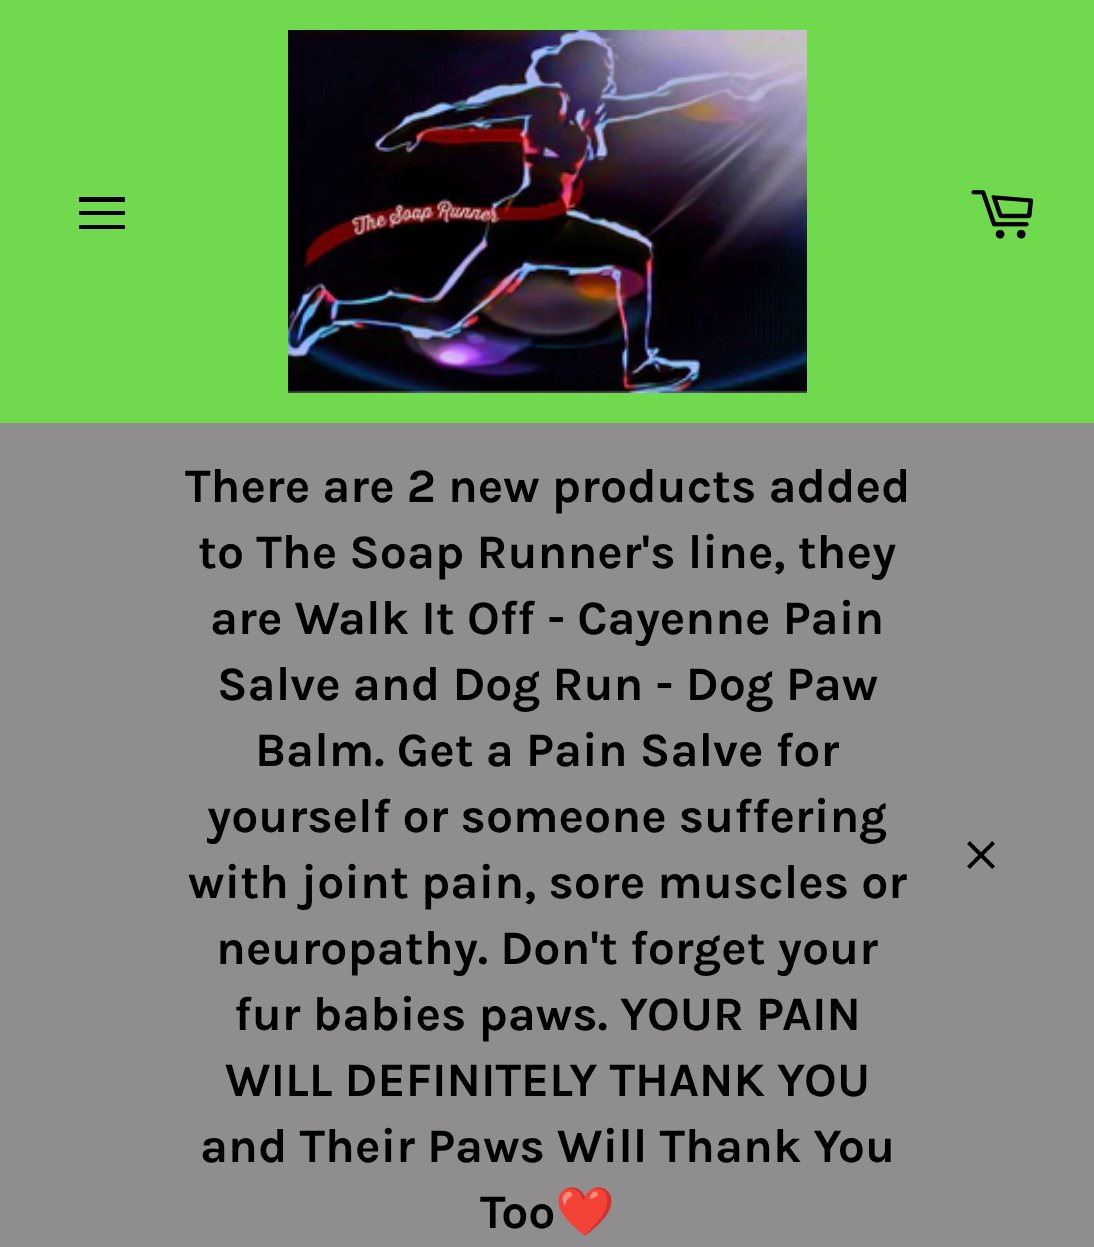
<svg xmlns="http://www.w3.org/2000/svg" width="1094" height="1247">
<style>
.a{font:bold 48px Karla;fill:#000}
.b{font:bold 48px Noto Color Emoji;fill:#000}
</style>
<rect width="100%" height="100%" fill="#70d94d"/>
<path fill="#000" d="M79 211h46v4h-46zm0-14h46v5h-46zm0 28h46v4h-46z"/>
<image href="1.png" x="288" y="30" width="519" height="363"/>
<image href="2.png" x="971" y="190" width="63" height="49"/>
<path fill="#8f8d8d" d="M0 423h1094v824H0z"/>
<image href="3.png" x="967" y="841" width="28" height="28"/>
<text class="a" x="185" y="502">There are 2 new products added</text>
<text class="a" x="198" y="568">to The Soap Runner's line, they</text>
<text class="a" x="210" y="634">are Walk It Off - Cayenne Pain</text>
<text class="a" x="217" y="700">Salve and Dog Run - Dog Paw</text>
<text class="a" x="255" y="766">Balm. Get a Pain Salve for</text>
<text class="a" x="207" y="832">yourself or someone suffering</text>
<text class="a" x="188" y="898">with joint pain, sore muscles or</text>
<text class="a" x="216" y="964">neuropathy. Don't forget your</text>
<text class="a" x="234" y="1030">fur babies paws. YOUR PAIN</text>
<text class="a" x="225" y="1096">WILL DEFINITELY THANK YOU</text>
<text class="a" x="200" y="1162">and Their Paws Will Thank You</text>
<text class="a" x="480" y="1228">Too</text>
<text class="b" x="555" y="1228">❤️</text>
</svg>
